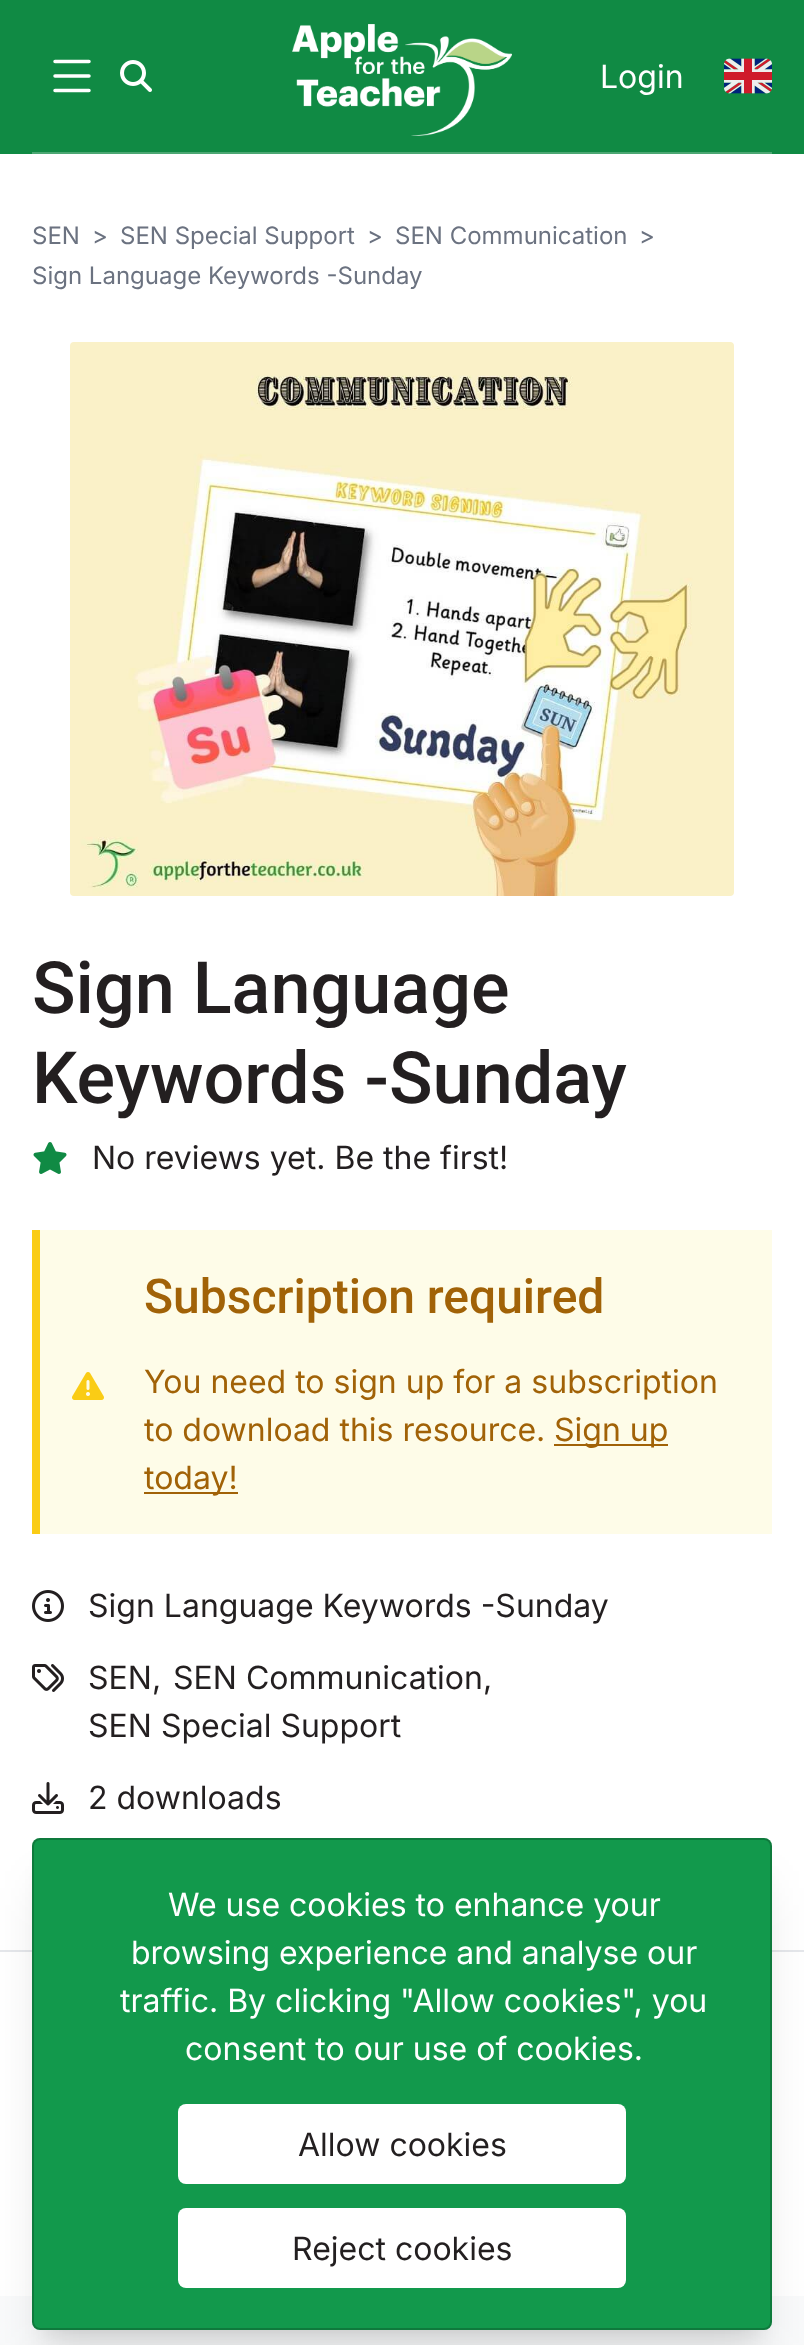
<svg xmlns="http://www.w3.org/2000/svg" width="804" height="2345">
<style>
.a{font:32px Inter;fill:#fff}
.b{font:24px Inter;fill:#6b7280}
.c{font:500 72px Roboto;fill:#231f20}
.d{font:32px Inter;fill:#231f20}
.e{font:500 48px Roboto;fill:#a16207}
.f{font:32px Inter;fill:#a16207}
</style>
<rect width="100%" height="100%" fill="#fff"/>
<path fill="#108a44" d="M0 0h804v154H0z"/>
<path fill="#4ca773" d="M32 152h740v2H32z"/>
<path fill="none" stroke="#fff" stroke-width="3.5" stroke-linecap="round" stroke-linejoin="round" d="M55 61.5h34m-34 29h34m-34-14.5h34"/>
<image href="1.png" x="120" y="60" width="32" height="32"/>
<image href="2.png" x="292" y="24" width="220" height="112"/>
<image href="3.png" x="724" y="58" width="48" height="36"/>
<image href="4.png" x="70" y="342" width="664" height="554"/>
<image href="5.png" x="33" y="1142" width="34" height="32"/>
<path fill="#fefce8" d="M40 1230h732v304H40z"/>
<path fill="#facc15" d="M32 1230h8v304H32z"/>
<image href="6.png" x="72" y="1372" width="32" height="28"/>
<path fill="#a16207" d="M554 1444h114v2H554z"/>
<path fill="#a16207" d="M144 1492h94v2H144z"/>
<image href="7.png" x="32" y="1590" width="32" height="32"/>
<image href="8.png" x="32" y="1664" width="32" height="28"/>
<image href="9.png" x="32" y="1782" width="32" height="32"/>
<path fill="#e5e7eb" d="M0 1950h804v2H0z"/>
<path fill="#f9fafb" d="M0 2296h804v49H0z"/>
<path fill="#0000001a" filter="blur(10px)" d="M44 1866h716v468H44z"/>
<path fill="#0000001a" filter="blur(25px)" d="M42 1888h720v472H42z"/>
<rect fill="#12994c" x="32" y="1838" width="740" height="492" rx="8"/>
<rect fill="none" stroke="#00000033" stroke-width="2" x="33" y="1839" width="738" height="490" rx="7"/>
<rect fill="#fff" x="178" y="2104" width="448" height="80" rx="8"/>
<rect fill="#fff" x="178" y="2208" width="448" height="80" rx="8"/>
<text class="a" x="600" y="88">Login</text>
<text class="b" x="32" y="244">SEN</text>
<text class="b" x="92" y="244">&gt;</text>
<text class="b" x="120" y="244">SEN Special Support</text>
<text class="b" x="367" y="244">&gt;</text>
<text class="b" x="395" y="244">SEN Communication</text>
<text class="b" x="639" y="244">&gt;</text>
<text class="b" x="32" y="284">Sign Language Keywords -Sunday</text>
<text class="c" x="32" y="1013">Sign Language</text>
<text class="c" x="32" y="1103">Keywords -Sunday</text>
<text class="d" x="92" y="1169">No reviews yet. Be the first!</text>
<text class="e" x="144" y="1313">Subscription required</text>
<text class="f" x="144" y="1393">You need to sign up for a subscription</text>
<text class="f" x="144" y="1441">to download this resource.</text>
<text class="f" x="554" y="1441">Sign up</text>
<text class="f" x="144" y="1489">today!</text>
<text class="d" x="88" y="1617">Sign Language Keywords -Sunday</text>
<text class="d" x="88" y="1689">SEN,</text>
<text class="d" x="173" y="1689">SEN Communication,</text>
<text class="d" x="88" y="1737">SEN Special Support</text>
<text class="d" x="88" y="1809">2 downloads</text>
<text class="a" x="168" y="1916">We use cookies to enhance your</text>
<text class="a" x="131" y="1964">browsing experience and analyse our</text>
<text class="a" x="120" y="2012">traffic. By clicking "Allow cookies", you</text>
<text class="a" x="185" y="2060">consent to our use of cookies.</text>
<text class="d" x="298" y="2156">Allow cookies</text>
<text class="d" x="292" y="2260">Reject cookies</text>
</svg>
